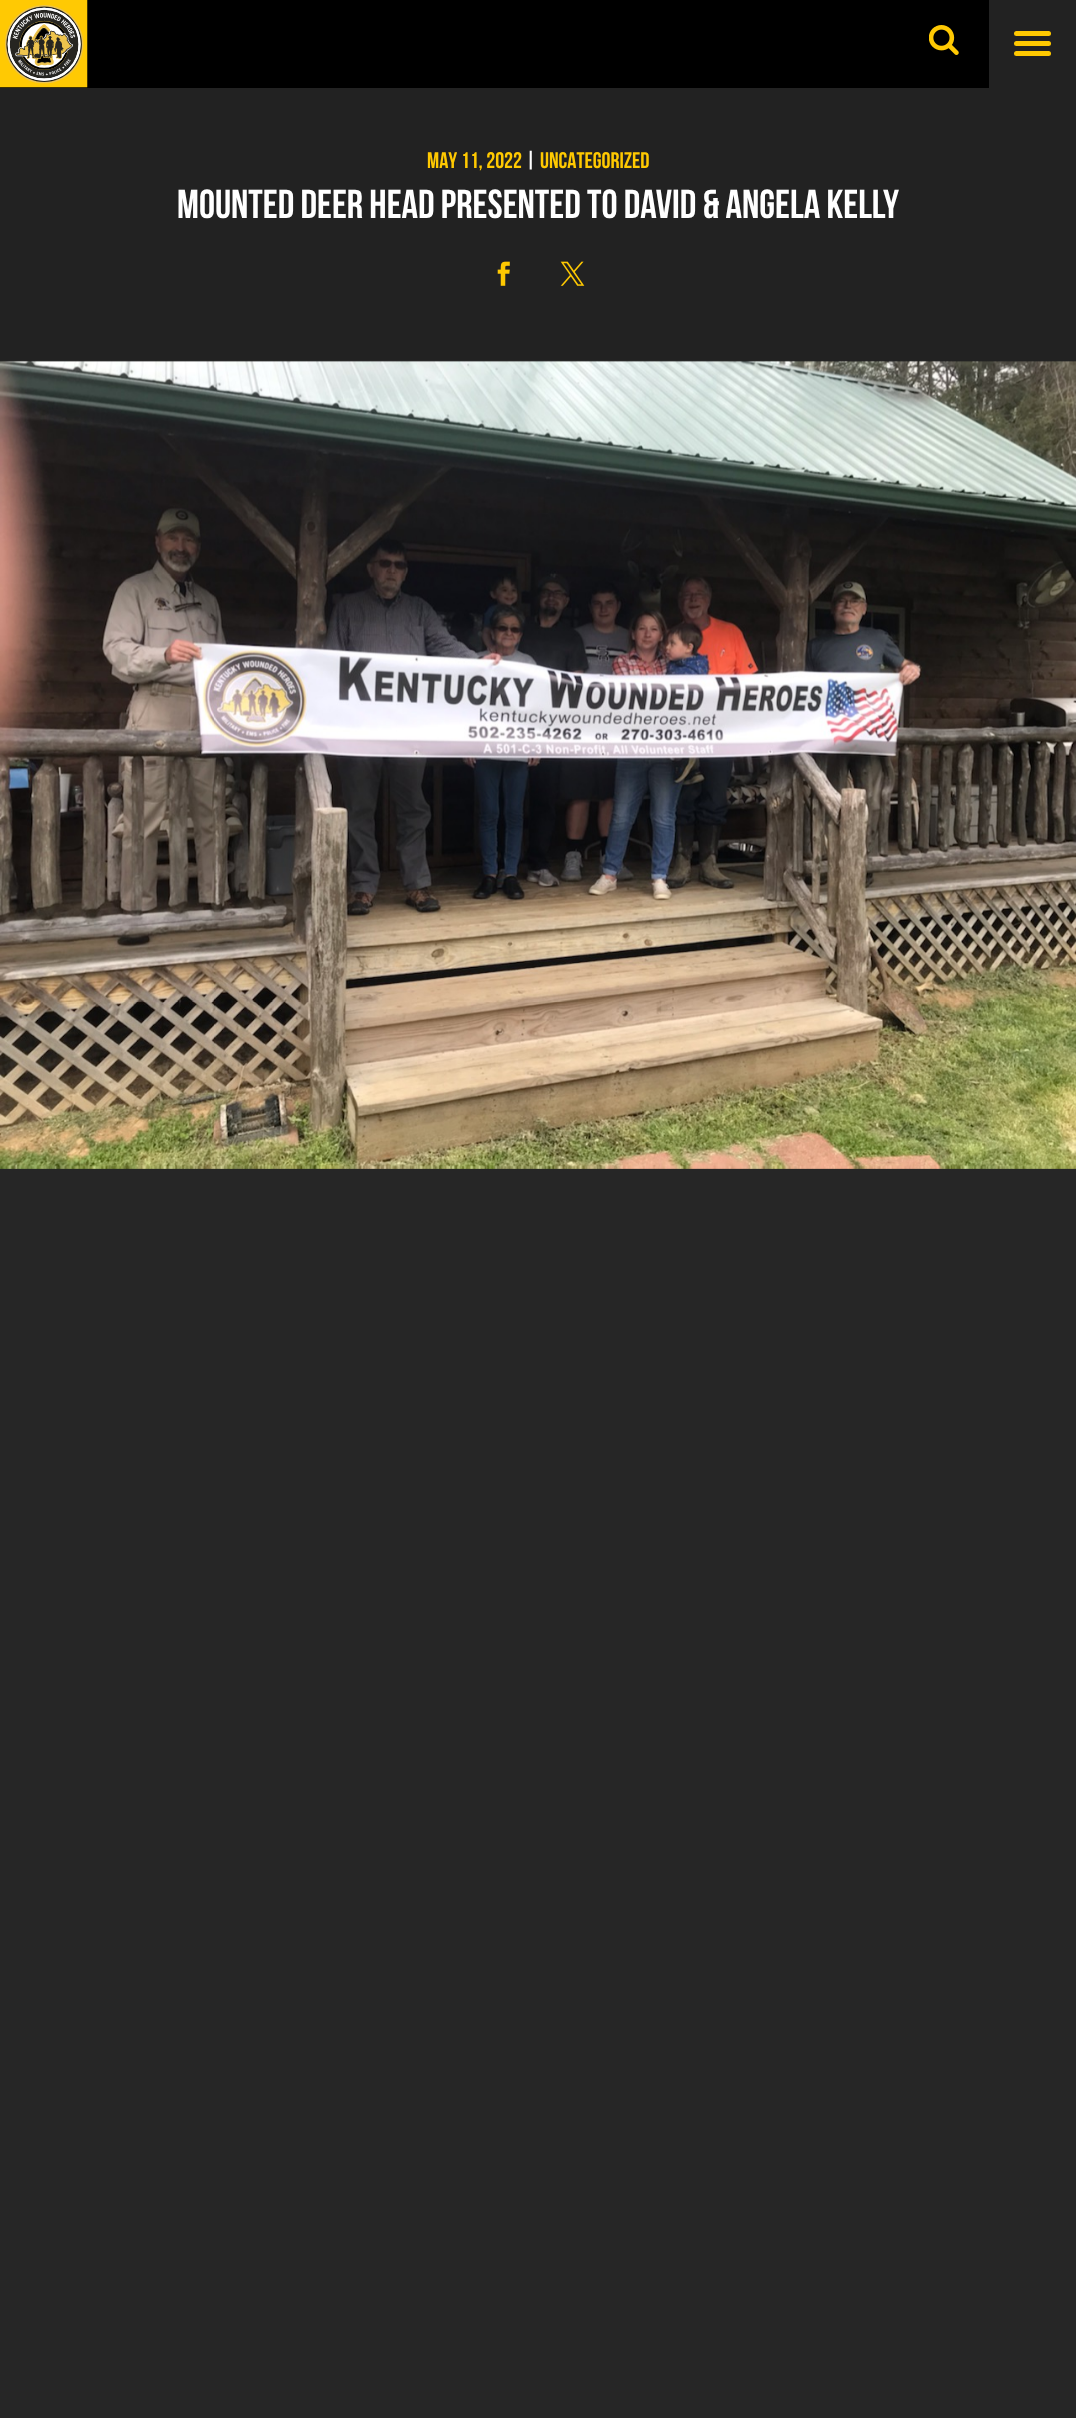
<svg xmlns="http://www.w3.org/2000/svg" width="1076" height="2418">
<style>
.a{font:bold 22.5px Bebas Neue;fill:#ffc901}
.b{font:bold 22.5px Bebas Neue;fill:#fff}
.c{font:bold 40.5px Bebas Neue;fill:#fff}
</style>
<rect width="100%" height="100%" fill="#222"/>
<path fill="#000" d="M0 0h989v88H0z"/>
<image href="1.png" x="0" y="0" width="88" height="88"/>
<image href="2.png" x="929" y="25" width="30" height="30"/>
<rect fill="#ffc901" x="1014" y="41" width="37" height="5" rx="2.5"/>
<rect fill="#ffc901" x="1014" y="31" width="37" height="5" rx="2.5"/>
<rect fill="#ffc901" x="1014" y="51" width="37" height="5" rx="2.5"/>
<image href="3.png" x="497" y="261" width="13" height="25"/>
<image href="4.png" x="560" y="261" width="25" height="25"/>
<image href="5.png" x="0" y="360" width="1076" height="809"/>
<path fill="#262626" d="M0 1169h1076v1249H0z"/>
<text class="a" x="427" y="168">MAY 11, 2022</text>
<text class="b" x="525" y="168">|</text>
<text class="a" x="540" y="168">UNCATEGORIZED</text>
<text class="c" x="177" y="218">MOUNTED DEER HEAD PRESENTED TO DAVID &amp; ANGELA KELLY</text>
</svg>
